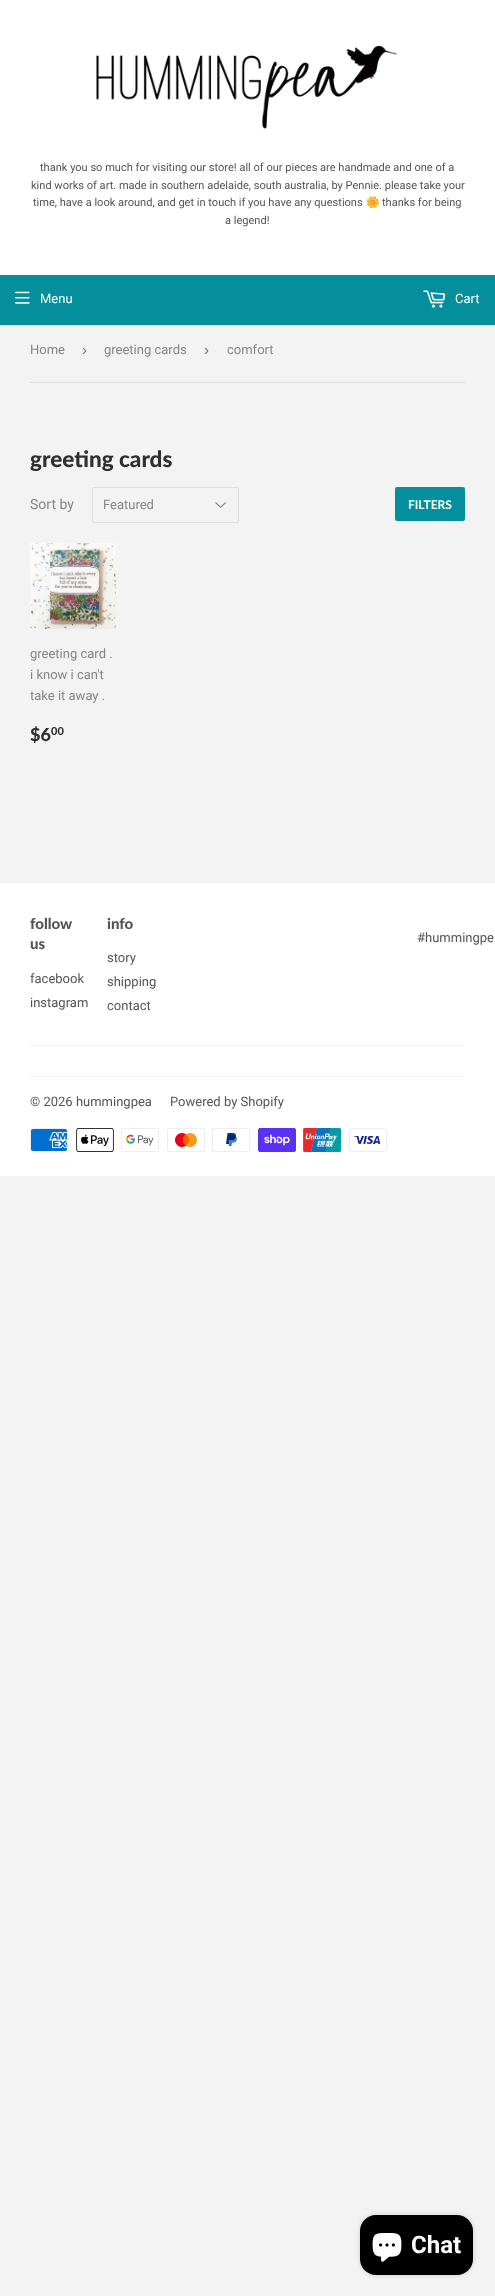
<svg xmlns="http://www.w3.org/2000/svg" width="495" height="2296">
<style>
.a{font:11.05px Roboto;fill:#545454}
.b{font:11.05px Noto Color Emoji;fill:#545454}
.c{font:13px Roboto;fill:#fff}
.d{font:13px Roboto;fill:#858585}
.e{font:15px Liberation Sans;fill:#767676}
.f{font:900 22.5px Lato;fill:#2f2f2f}
.g{font:14px Roboto;fill:#858585}
.h{font:bold 12px Lato;fill:#fff}
.i{font:900 18px Lato;fill:#2f2f2f}
.j{font:900 11px Lato;fill:#2f2f2f}
.k{font:900 15px Lato;fill:#545454}
.l{font:13px Roboto;fill:#545454}
.m{font:bold 24px Roboto;fill:#fff}
</style>
<rect width="100%" height="100%" fill="#f3f3f3"/>
<path fill="#fff" d="M0 0h495v275H0z"/>
<image href="1.png" x="96" y="45" width="301" height="84"/>
<path fill="#058f9c" d="M0 275h495v50H0z"/>
<image href="2.png" x="15" y="291" width="15" height="13"/>
<image href="3.png" x="423" y="290" width="23" height="18"/>
<path fill="#dedede" d="M30 382h435v1H30z"/>
<image href="4.png" x="215" y="502" width="11" height="6"/>
<rect fill="none" stroke="#dedede" x="92.5" y="487.5" width="146" height="35" rx="1.5"/>
<rect fill="#058f9c" x="395" y="487" width="70" height="34" rx="2"/>
<image href="5.png" x="30" y="543" width="86" height="86"/>
<path fill="#fff" d="M0 883h495v293H0z"/>
<path fill="#f2f2f2" d="M30 1045h435v1H30z"/>
<path fill="#f2f2f2" d="M30 1076h435v1H30z"/>
<image href="6.png" x="30" y="1128" width="38" height="24"/>
<image href="7.png" x="76" y="1128" width="38" height="24"/>
<image href="8.png" x="121" y="1128" width="38" height="24"/>
<image href="9.png" x="167" y="1128" width="38" height="24"/>
<image href="10.png" x="212" y="1128" width="38" height="24"/>
<image href="11.png" x="258" y="1128" width="38" height="24"/>
<image href="12.png" x="303" y="1128" width="38" height="24"/>
<image href="13.png" x="349" y="1128" width="38" height="24"/>
<rect fill="#00000026" filter="blur(2.5px)" x="360" y="2215" width="113" height="60" rx="16"/>
<rect fill="#000" x="360" y="2215" width="113" height="60" rx="16"/>
<image href="14.png" x="372" y="2233" width="30" height="29"/>
<text class="a" x="40" y="171">thank you so much for visiting our store! all of our pieces are handmade and one of a</text>
<text class="a" x="31" y="189">kind works of art. made in southern adelaide, south australia, by Pennie. please take your</text>
<text class="a" x="33" y="206">time, have a look around, and get in touch if you have any questions</text>
<text class="b" x="366" y="206">🌼</text>
<text class="a" x="382" y="206">thanks for being</text>
<text class="a" x="225" y="224">a legend!</text>
<text class="c" x="40" y="303">Menu</text>
<text class="c" x="455" y="303">Cart</text>
<text class="d" x="30" y="354">Home</text>
<text class="e" x="82" y="355">›</text>
<text class="d" x="104" y="354">greeting cards</text>
<text class="e" x="204" y="355">›</text>
<text class="d" x="227" y="354">comfort</text>
<text class="f" x="30" y="467">greeting cards</text>
<text class="g" x="30" y="509">Sort by</text>
<text class="d" x="103" y="509">Featured</text>
<text class="h" x="408" y="509">FILTERS</text>
<text class="d" x="30" y="658">greeting card .</text>
<text class="d" x="30" y="679">i know i can't</text>
<text class="d" x="30" y="700">take it away .</text>
<text class="i" x="30" y="741">$6</text>
<text class="j" x="51" y="735">00</text>
<text class="k" x="30" y="929">follow</text>
<text class="k" x="30" y="949">us</text>
<text class="l" x="30" y="983">facebook</text>
<text class="l" x="30" y="1007">instagram</text>
<text class="k" x="107" y="929">info</text>
<text class="l" x="107" y="962">story</text>
<text class="l" x="107" y="986">shipping</text>
<text class="l" x="107" y="1010">contact</text>
<text class="l" x="417" y="942">#hummingpe</text>
<text class="l" x="30" y="1106">© 2026 hummingpea</text>
<text class="l" x="170" y="1106">Powered by Shopify</text>
<text class="m" x="411" y="2253">Chat</text>
</svg>
